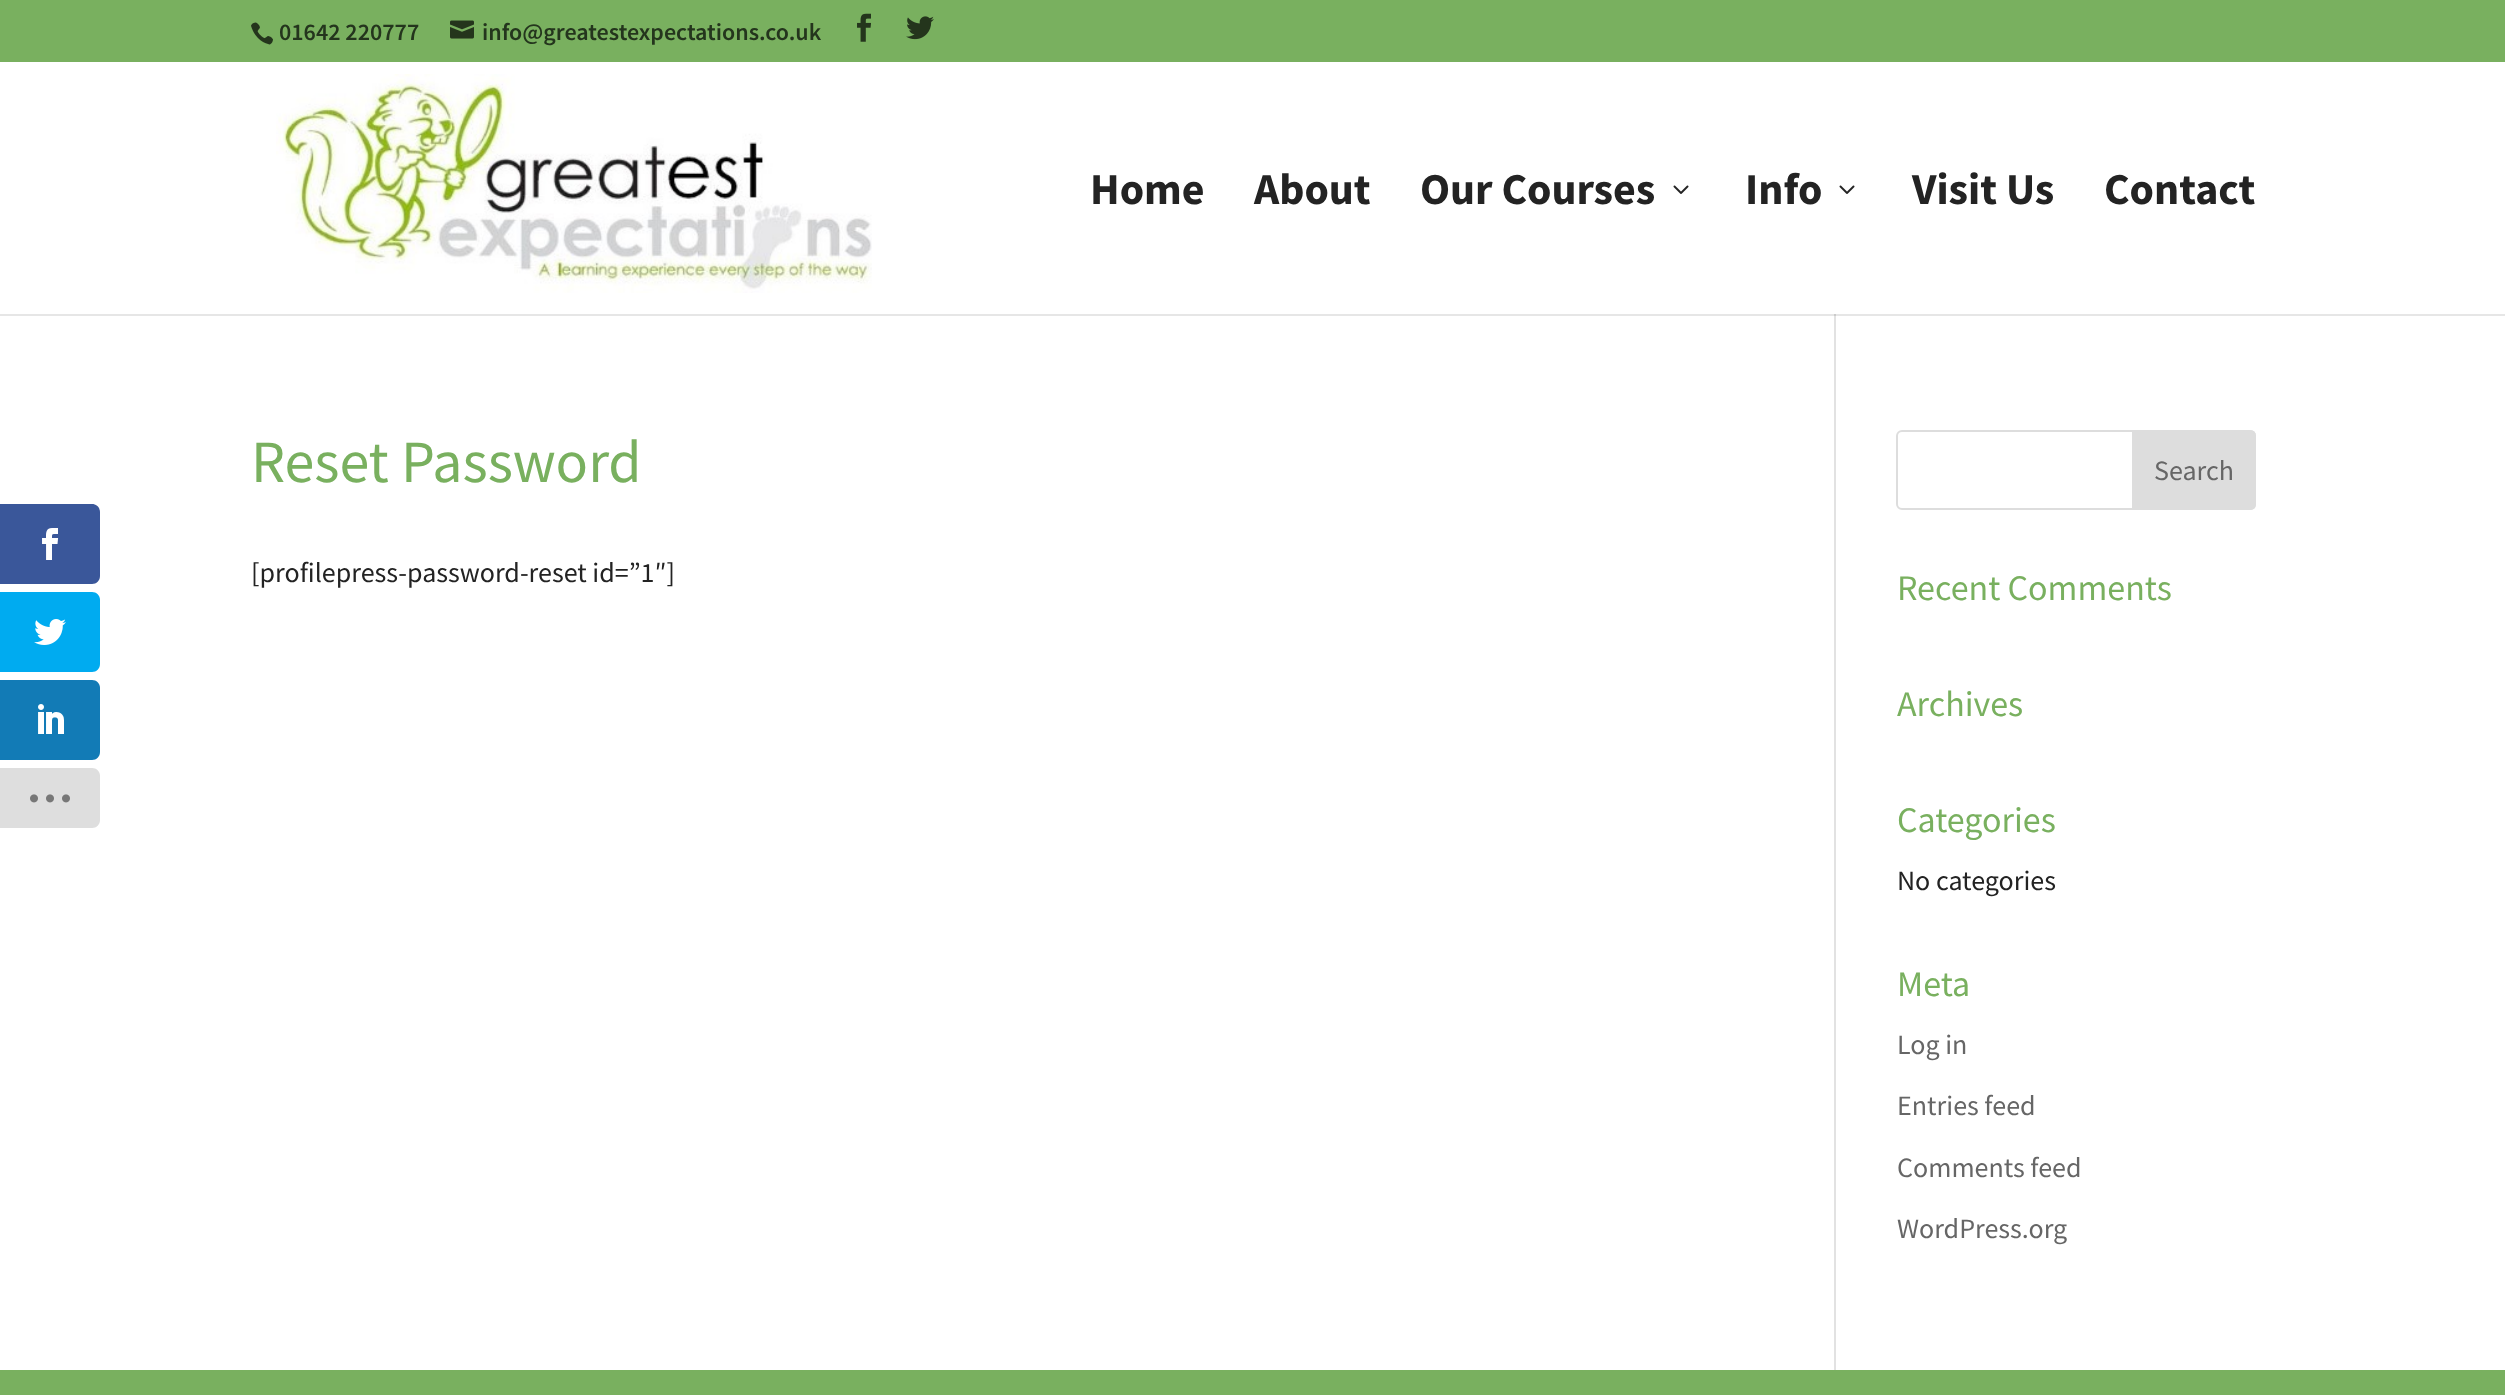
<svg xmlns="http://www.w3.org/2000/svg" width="2505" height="1395">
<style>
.a{font:600 24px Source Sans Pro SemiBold;fill:#24351d}
.b{font:bold 44px Source Sans Pro;fill:#232323}
.c{font:60px Source Sans Pro;fill:#79b05f}
.d{font:28px Source Sans Pro;fill:#232323}
.e{font:28px Source Sans Pro;fill:#666}
.f{font:36px Source Sans Pro;fill:#79b05f}
</style>
<rect width="100%" height="100%" fill="#fff"/>
<path fill="#3a579a" d="M0 504h92c4.5 0 8 3.5 8 8v64c0 4.5-3.5 8-8 8h-92z"/>
<image href="1.png" x="42" y="528" width="17" height="32"/>
<path fill="#00abf0" d="M0 592h92c4.5 0 8 3.5 8 8v64c0 4.5-3.5 8-8 8h-92z"/>
<image href="2.png" x="34" y="619" width="32" height="26"/>
<path fill="#127bb6" d="M0 680h92c4.5 0 8 3.5 8 8v64c0 4.5-3.5 8-8 8h-92z"/>
<image href="3.png" x="38" y="704" width="26" height="30"/>
<path fill="#dedede" d="M0 768h92c4.5 0 8 3.5 8 8v44c0 4.5-3.5 8-8 8h-92z"/>
<image href="4.png" x="30" y="794" width="40" height="9"/>
<path fill="#79b05f" d="M0 0h2505v62H0z"/>
<image href="5.png" x="251" y="22" width="22" height="23"/>
<image href="6.png" x="450" y="20" width="24" height="19"/>
<image href="7.png" x="857" y="13" width="14" height="29"/>
<image href="8.png" x="906" y="16" width="28" height="24"/>
<image href="9.png" x="276" y="74" width="596" height="219"/>
<image href="10.png" x="1673" y="185" width="16" height="9"/>
<image href="10.png" x="1839" y="185" width="16" height="9"/>
<path fill="#e6e6e6" d="M0 314h2505v2H0z"/>
<path fill="#e2e2e2" d="M1834 314h2v1056H1834z"/>
<path fill="#cbcbcb" d="M1834 314h2v2H1834z"/>
<rect fill="none" stroke="#ddd" stroke-width="2" x="1897" y="431" width="358" height="78" rx="5"/>
<path fill="#ddd" stroke="#ddd" stroke-width="2" d="M2133 431h117c3 0 5 2 5 5v68c0 3-2 5-5 5h-117z"/>
<path fill="#79b05f" d="M0 1370h2505v25H0z"/>
<text class="a" x="279" y="40">01642 220777</text>
<text class="a" x="482" y="40">info@greatestexpectations.co.uk</text>
<text class="b" x="1090" y="204">Home</text>
<text class="b" x="1254" y="204">About</text>
<text class="b" x="1420" y="204">Our Courses</text>
<text class="b" x="1745" y="204">Info</text>
<text class="b" x="1912" y="204">Visit Us</text>
<text class="b" x="2104" y="204">Contact</text>
<text class="c" x="251" y="482">Reset Password</text>
<text class="d" x="251" y="582">[profilepress-password-reset id=”1″]</text>
<text class="e" x="2154" y="480">Search</text>
<text class="f" x="1897" y="600">Recent Comments</text>
<text class="f" x="1897" y="716">Archives</text>
<text class="f" x="1897" y="832">Categories</text>
<text class="d" x="1897" y="890">No categories</text>
<text class="f" x="1897" y="996">Meta</text>
<text class="e" x="1897" y="1054">Log in</text>
<text class="e" x="1897" y="1115">Entries feed</text>
<text class="e" x="1897" y="1177">Comments feed</text>
<text class="e" x="1897" y="1238">WordPress.org</text>
</svg>
